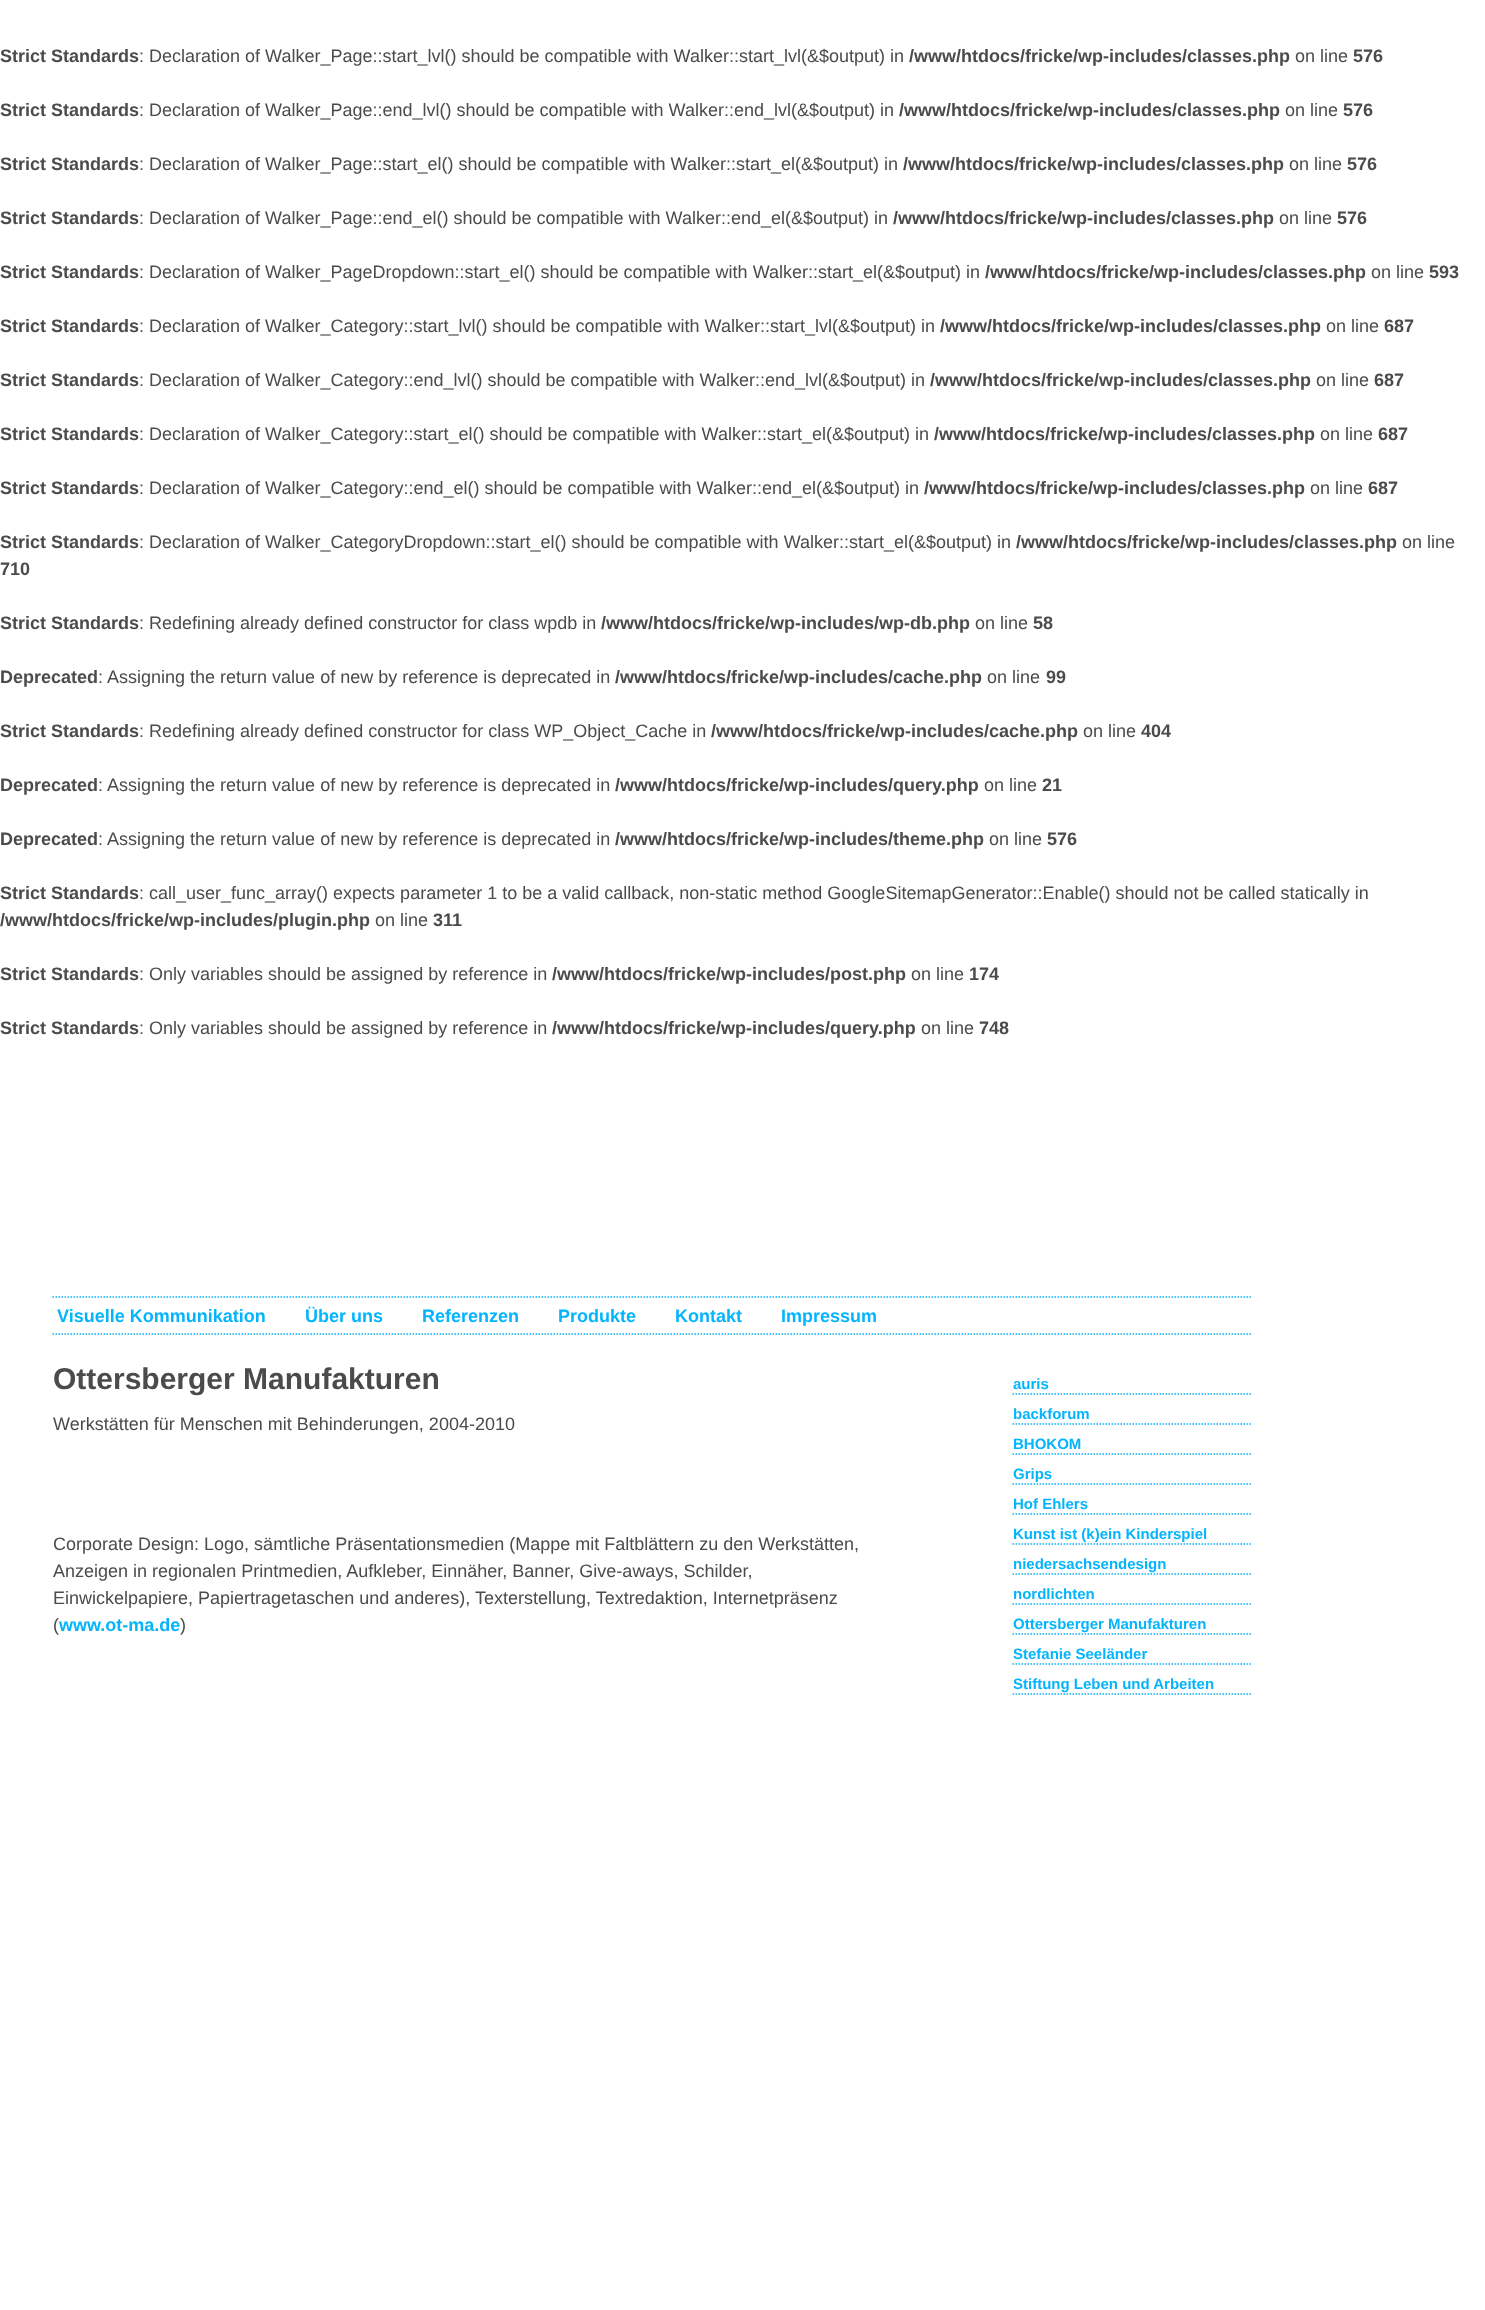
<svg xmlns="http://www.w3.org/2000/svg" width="1485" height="2310">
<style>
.a{font:bold 18px Liberation Sans;fill:#4b4b4b}
.b{font:18px Liberation Sans;fill:#4b4b4b}
.c{font:bold 18px Liberation Sans;fill:#04b4fd}
.d{font:bold 30px Liberation Sans;fill:#4b4b4b}
.e{font:bold 15px Liberation Sans;fill:#04b4fd}
</style>
<rect width="100%" height="100%" fill="#fff"/>
<path fill="none" stroke="#04b4fd" stroke-width="1.5" stroke-dasharray="1.5 1.5" d="M52.5 1297h1200"/>
<path fill="none" stroke="#04b4fd" stroke-width="1.5" stroke-dasharray="1.5 1.5" d="M52.5 1334h1200"/>
<path fill="none" stroke="#04b4fd" stroke-width="1.5" stroke-dasharray="1.5 1.5" d="M1012.5 1394h240"/>
<path fill="none" stroke="#04b4fd" stroke-width="1.5" stroke-dasharray="1.5 1.5" d="M1012.5 1424h240"/>
<path fill="none" stroke="#04b4fd" stroke-width="1.5" stroke-dasharray="1.5 1.5" d="M1012.5 1454h240"/>
<path fill="none" stroke="#04b4fd" stroke-width="1.5" stroke-dasharray="1.5 1.5" d="M1012.5 1484h240"/>
<path fill="none" stroke="#04b4fd" stroke-width="1.5" stroke-dasharray="1.5 1.5" d="M1012.5 1514h240"/>
<path fill="none" stroke="#04b4fd" stroke-width="1.5" stroke-dasharray="1.5 1.5" d="M1012.5 1544h240"/>
<path fill="none" stroke="#04b4fd" stroke-width="1.5" stroke-dasharray="1.5 1.5" d="M1012.5 1574h240"/>
<path fill="none" stroke="#04b4fd" stroke-width="1.5" stroke-dasharray="1.5 1.5" d="M1012.5 1604h240"/>
<path fill="none" stroke="#04b4fd" stroke-width="1.5" stroke-dasharray="1.5 1.5" d="M1012.5 1634h240"/>
<path fill="none" stroke="#04b4fd" stroke-width="1.5" stroke-dasharray="1.5 1.5" d="M1012.5 1664h240"/>
<path fill="none" stroke="#04b4fd" stroke-width="1.5" stroke-dasharray="1.5 1.5" d="M1012.5 1694h240"/>
<text class="a" x="0" y="62">Strict Standards</text>
<text class="b" x="139" y="62">: Declaration of Walker_Page::start_lvl() should be compatible with Walker::start_lvl(&amp;$output) in</text>
<text class="a" x="909" y="62">/www/htdocs/fricke/wp-includes/classes.php</text>
<text class="b" x="1295" y="62">on line</text>
<text class="a" x="1353" y="62">576</text>
<text class="a" x="0" y="116">Strict Standards</text>
<text class="b" x="139" y="116">: Declaration of Walker_Page::end_lvl() should be compatible with Walker::end_lvl(&amp;$output) in</text>
<text class="a" x="899" y="116">/www/htdocs/fricke/wp-includes/classes.php</text>
<text class="b" x="1285" y="116">on line</text>
<text class="a" x="1343" y="116">576</text>
<text class="a" x="0" y="170">Strict Standards</text>
<text class="b" x="139" y="170">: Declaration of Walker_Page::start_el() should be compatible with Walker::start_el(&amp;$output) in</text>
<text class="a" x="903" y="170">/www/htdocs/fricke/wp-includes/classes.php</text>
<text class="b" x="1289" y="170">on line</text>
<text class="a" x="1347" y="170">576</text>
<text class="a" x="0" y="224">Strict Standards</text>
<text class="b" x="139" y="224">: Declaration of Walker_Page::end_el() should be compatible with Walker::end_el(&amp;$output) in</text>
<text class="a" x="893" y="224">/www/htdocs/fricke/wp-includes/classes.php</text>
<text class="b" x="1279" y="224">on line</text>
<text class="a" x="1337" y="224">576</text>
<text class="a" x="0" y="278">Strict Standards</text>
<text class="b" x="139" y="278">: Declaration of Walker_PageDropdown::start_el() should be compatible with Walker::start_el(&amp;$output) in</text>
<text class="a" x="985" y="278">/www/htdocs/fricke/wp-includes/classes.php</text>
<text class="b" x="1371" y="278">on line</text>
<text class="a" x="1429" y="278">593</text>
<text class="a" x="0" y="332">Strict Standards</text>
<text class="b" x="139" y="332">: Declaration of Walker_Category::start_lvl() should be compatible with Walker::start_lvl(&amp;$output) in</text>
<text class="a" x="940" y="332">/www/htdocs/fricke/wp-includes/classes.php</text>
<text class="b" x="1326" y="332">on line</text>
<text class="a" x="1384" y="332">687</text>
<text class="a" x="0" y="386">Strict Standards</text>
<text class="b" x="139" y="386">: Declaration of Walker_Category::end_lvl() should be compatible with Walker::end_lvl(&amp;$output) in</text>
<text class="a" x="930" y="386">/www/htdocs/fricke/wp-includes/classes.php</text>
<text class="b" x="1316" y="386">on line</text>
<text class="a" x="1374" y="386">687</text>
<text class="a" x="0" y="440">Strict Standards</text>
<text class="b" x="139" y="440">: Declaration of Walker_Category::start_el() should be compatible with Walker::start_el(&amp;$output) in</text>
<text class="a" x="934" y="440">/www/htdocs/fricke/wp-includes/classes.php</text>
<text class="b" x="1320" y="440">on line</text>
<text class="a" x="1378" y="440">687</text>
<text class="a" x="0" y="494">Strict Standards</text>
<text class="b" x="139" y="494">: Declaration of Walker_Category::end_el() should be compatible with Walker::end_el(&amp;$output) in</text>
<text class="a" x="924" y="494">/www/htdocs/fricke/wp-includes/classes.php</text>
<text class="b" x="1310" y="494">on line</text>
<text class="a" x="1368" y="494">687</text>
<text class="a" x="0" y="548">Strict Standards</text>
<text class="b" x="139" y="548">: Declaration of Walker_CategoryDropdown::start_el() should be compatible with Walker::start_el(&amp;$output) in</text>
<text class="a" x="1016" y="548">/www/htdocs/fricke/wp-includes/classes.php</text>
<text class="b" x="1402" y="548">on line</text>
<text class="a" x="0" y="575">710</text>
<text class="a" x="0" y="629">Strict Standards</text>
<text class="b" x="139" y="629">: Redefining already defined constructor for class wpdb in</text>
<text class="a" x="601" y="629">/www/htdocs/fricke/wp-includes/wp-db.php</text>
<text class="b" x="975" y="629">on line</text>
<text class="a" x="1033" y="629">58</text>
<text class="a" x="0" y="683">Deprecated</text>
<text class="b" x="98" y="683">:</text>
<text class="b" x="107" y="683">Assigning the return value of new by reference is deprecated in</text>
<text class="a" x="615" y="683">/www/htdocs/fricke/wp-includes/cache.php</text>
<text class="b" x="987" y="683">on line</text>
<text class="a" x="1046" y="683">99</text>
<text class="a" x="0" y="737">Strict Standards</text>
<text class="b" x="139" y="737">: Redefining already defined constructor for class WP_Object_Cache in</text>
<text class="a" x="711" y="737">/www/htdocs/fricke/wp-includes/cache.php</text>
<text class="b" x="1083" y="737">on line</text>
<text class="a" x="1141" y="737">404</text>
<text class="a" x="0" y="791">Deprecated</text>
<text class="b" x="98" y="791">:</text>
<text class="b" x="107" y="791">Assigning the return value of new by reference is deprecated in</text>
<text class="a" x="615" y="791">/www/htdocs/fricke/wp-includes/query.php</text>
<text class="b" x="984" y="791">on line</text>
<text class="a" x="1042" y="791">21</text>
<text class="a" x="0" y="845">Deprecated</text>
<text class="b" x="98" y="845">:</text>
<text class="b" x="107" y="845">Assigning the return value of new by reference is deprecated in</text>
<text class="a" x="615" y="845">/www/htdocs/fricke/wp-includes/theme.php</text>
<text class="b" x="989" y="845">on line</text>
<text class="a" x="1047" y="845">576</text>
<text class="a" x="0" y="899">Strict Standards</text>
<text class="b" x="139" y="899">: call_user_func_array() expects parameter 1 to be a valid callback, non-static method GoogleSitemapGenerator::Enable() should not be called statically in</text>
<text class="a" x="0" y="926">/www/htdocs/fricke/wp-includes/plugin.php</text>
<text class="b" x="375" y="926">on line</text>
<text class="a" x="433" y="926">311</text>
<text class="a" x="0" y="980">Strict Standards</text>
<text class="b" x="139" y="980">: Only variables should be assigned by reference in</text>
<text class="a" x="552" y="980">/www/htdocs/fricke/wp-includes/post.php</text>
<text class="b" x="911" y="980">on line</text>
<text class="a" x="969" y="980">174</text>
<text class="a" x="0" y="1034">Strict Standards</text>
<text class="b" x="139" y="1034">: Only variables should be assigned by reference in</text>
<text class="a" x="552" y="1034">/www/htdocs/fricke/wp-includes/query.php</text>
<text class="b" x="921" y="1034">on line</text>
<text class="a" x="979" y="1034">748</text>
<text class="c" x="57" y="1322">Visuelle Kommunikation</text>
<text class="c" x="305" y="1322">Über uns</text>
<text class="c" x="422" y="1322">Referenzen</text>
<text class="c" x="558" y="1322">Produkte</text>
<text class="c" x="675" y="1322">Kontakt</text>
<text class="c" x="781" y="1322">Impressum</text>
<text class="d" x="53" y="1389">Ottersberger Manufakturen</text>
<text class="b" x="53" y="1430">Werkstätten für Menschen mit Behinderungen, 2004-2010</text>
<text class="b" x="53" y="1550">Corporate Design: Logo, sämtliche Präsentationsmedien (Mappe mit Faltblättern zu den Werkstätten,</text>
<text class="b" x="53" y="1577">Anzeigen in regionalen Printmedien, Aufkleber, Einnäher, Banner, Give-aways, Schilder,</text>
<text class="b" x="53" y="1604">Einwickelpapiere, Papiertragetaschen und anderes), Texterstellung, Textredaktion, Internetpräsenz</text>
<text class="b" x="53" y="1631">(</text>
<text class="c" x="59" y="1631">www.ot-ma.de</text>
<text class="b" x="180" y="1631">)</text>
<text class="e" x="1013" y="1389">auris</text>
<text class="e" x="1013" y="1419">backforum</text>
<text class="e" x="1013" y="1449">BHOKOM</text>
<text class="e" x="1013" y="1479">Grips</text>
<text class="e" x="1013" y="1509">Hof Ehlers</text>
<text class="e" x="1013" y="1539">Kunst ist (k)ein Kinderspiel</text>
<text class="e" x="1013" y="1569">niedersachsendesign</text>
<text class="e" x="1013" y="1599">nordlichten</text>
<text class="e" x="1013" y="1629">Ottersberger Manufakturen</text>
<text class="e" x="1013" y="1659">Stefanie Seeländer</text>
<text class="e" x="1013" y="1689">Stiftung Leben und Arbeiten</text>
</svg>
